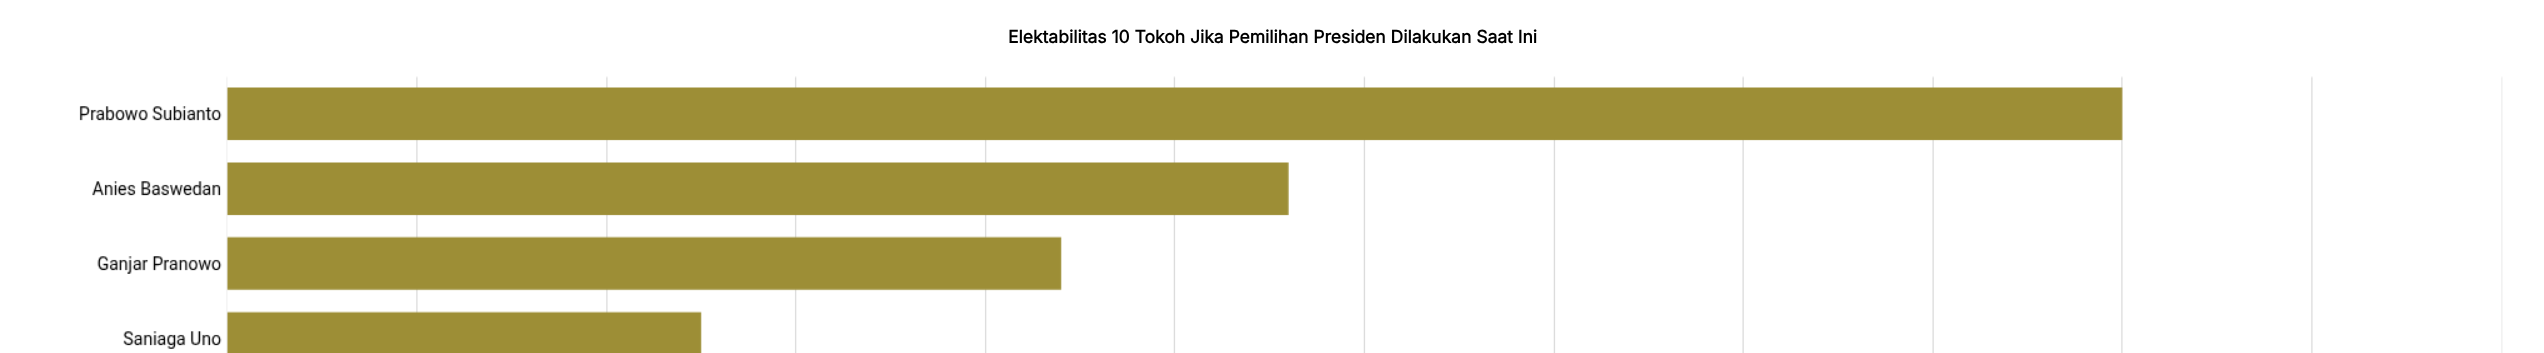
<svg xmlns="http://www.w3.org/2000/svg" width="2544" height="353">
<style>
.a{font:bold 17.5px Inter;fill:#000}
</style>
<rect width="100%" height="100%" fill="#fff"/>
<image href="1.png" x="79" y="76" width="2424" height="277"/>
<text class="a" x="1008" y="43">Elektabilitas 10 Tokoh Jika Pemilihan Presiden Dilakukan Saat Ini</text>
</svg>
